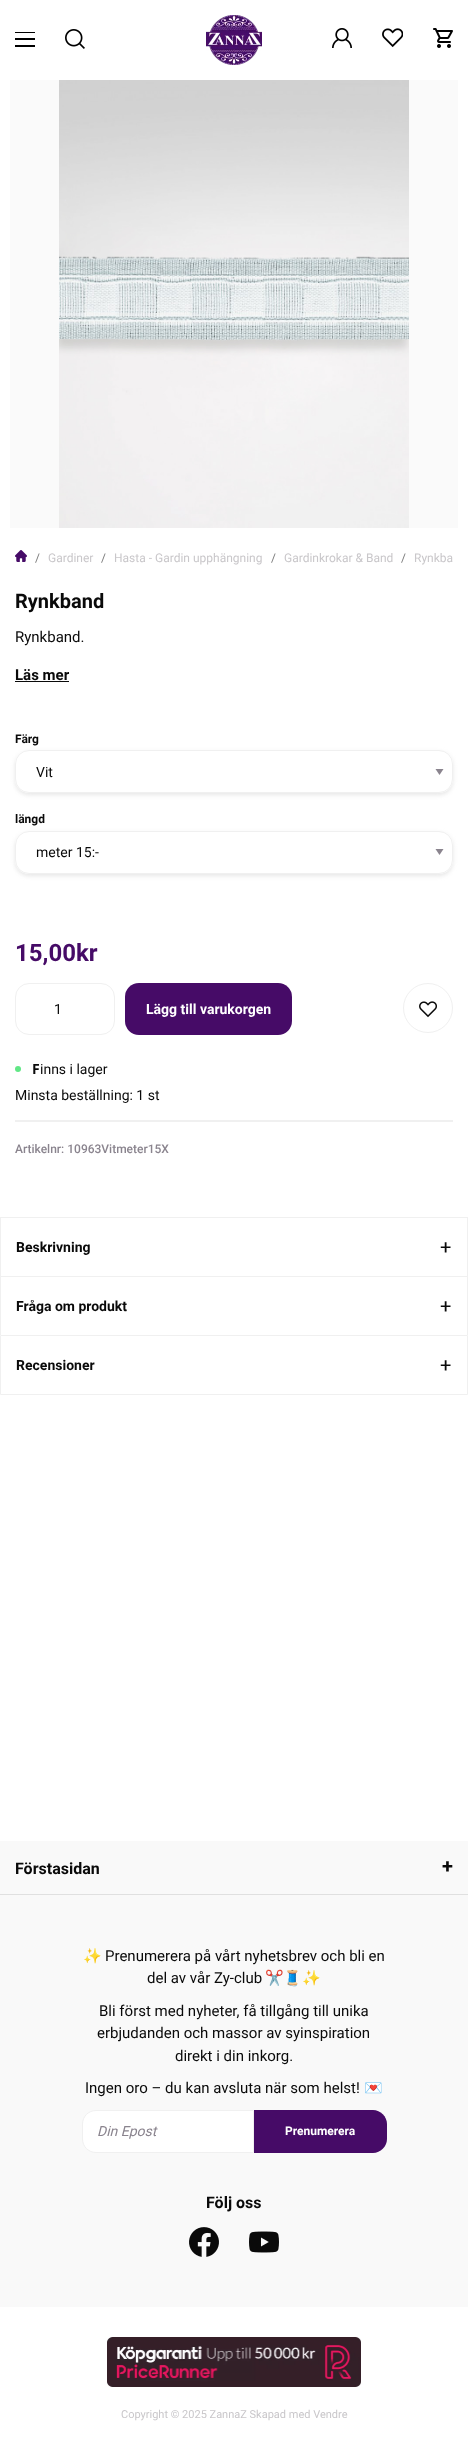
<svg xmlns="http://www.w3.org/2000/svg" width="468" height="2452">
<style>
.a{font:12px Roboto;fill:#7a7a7a}
.b{font:12px Roboto;fill:#c9c7ca}
.c{font:bold 20px Roboto;fill:#0a0a0a}
.d{font:15px Roboto;fill:#0a0a0a}
.e{font:bold 15px Roboto;fill:#0a0a0a}
.f{font:bold 12px Roboto;fill:#0a0a0a}
.g{font:14px Roboto;fill:#0a0a0a}
.h{font:bold 24px Roboto;fill:#460b67}
.i{font:bold 14px Roboto;fill:#fff}
.j{font:bold 14px Noto Sans;fill:#0a0a0a}
.k{font:500 12px Roboto;fill:#8a848e}
.l{font:bold 14px Roboto;fill:#0a0a0a}
.m{font:20px Roboto;fill:#0a0a0a}
.n{font:bold 16px Roboto;fill:#0a0a0a}
.o{font:15px Noto Color Emoji;fill:#0a0a0a}
.p{font:italic 14px Roboto;fill:#8a848e}
.q{font:bold 12px Roboto;fill:#fff}
.r{font:11px Roboto;fill:#c9c7ca}
</style>
<rect width="100%" height="100%" fill="#fff"/>
<path fill="#000" d="M15 32h20v1H15z"/>
<path fill="#000" d="M15 38h20v2H15z"/>
<path fill="#000" d="M15 45h20v2H15z"/>
<image href="1.png" x="65" y="29" width="20" height="20"/>
<image href="2.png" x="206" y="15" width="56" height="50"/>
<image href="3.png" x="332" y="28" width="20" height="20"/>
<image href="4.png" x="382" y="28" width="21" height="20"/>
<image href="5.png" x="433" y="28" width="20" height="20"/>
<path fill="#fafafa" d="M10 80h448v448H10z"/>
<image href="6.png" x="59" y="80" width="350" height="448"/>
<image href="7.png" x="15" y="550" width="12" height="12"/>
<path fill="#0a0a0a" d="M15 681h54v1H15z"/>
<rect fill="#e2e2e2d6" filter="blur(2px)" x="15" y="752" width="438" height="43" rx="14"/>
<rect fill="#fff" x="15" y="750" width="438" height="43" rx="14"/>
<path fill="#8a848e" d="M435.5 769h8l-4 6z"/>
<rect fill="none" stroke="#f0f0f0" x="15.5" y="750.5" width="437" height="42" rx="13.5"/>
<rect fill="#e2e2e2d6" filter="blur(2px)" x="15" y="833" width="438" height="43" rx="14"/>
<rect fill="#fff" x="15" y="831" width="438" height="43" rx="14"/>
<path fill="#8a848e" d="M435.5 849h8l-4 6z"/>
<rect fill="none" stroke="#f0f0f0" x="15.5" y="831.5" width="437" height="42" rx="13.5"/>
<rect fill="none" stroke="#f0f0f0" x="15.5" y="983.5" width="99" height="51" rx="13.5"/>
<rect fill="#460b67" x="125" y="983" width="167" height="52" rx="14"/>
<circle fill="none" stroke="#f0f0f0" cx="428" cy="1008" r="24.5"/>
<image href="8.png" x="419" y="1001" width="18" height="17"/>
<circle fill="#61e786" cx="18" cy="1069" r="3"/>
<path fill="#f0f0f0" d="M15 1120h438v2H15z"/>
<path fill="#f0f0f0" d="M0 1217h468v1H0z"/>
<path fill="#f0f0f0" d="M467 1217h1v59H467z"/>
<path fill="#f0f0f0" d="M0 1217h1v59H0z"/>
<path fill="#f0f0f0" d="M0 1276h468v1H0z"/>
<path fill="#f0f0f0" d="M467 1276h1v59H467z"/>
<path fill="#f0f0f0" d="M0 1276h1v59H0z"/>
<path fill="none" stroke="#f0f0f0" d="M0.5 1335.5h467v59H0.5z"/>
<path fill="#f9f9f9" d="M0 1841h468v466H0z"/>
<path fill="#e0e0e0" d="M0 1894h468v1H0z"/>
<path fill="#fff" stroke="#f0f0f0" d="M96 2110.5h157.5v42h-157.5c-7.5 0-13.5-6-13.5-13.5v-15c0-7.5 6-13.5 13.5-13.5z"/>
<path fill="#460b67" d="M254 2110h119c7.5 0 14 6.5 14 14v15c0 7.5-6.5 14-14 14h-119z"/>
<image href="9.png" x="189" y="2227" width="30" height="30"/>
<image href="10.png" x="249" y="2231" width="30" height="22"/>
<image href="11.png" x="107" y="2337" width="254" height="50"/>
<text class="a" x="35" y="562">/</text>
<text class="b" x="48" y="562">Gardiner</text>
<text class="a" x="101" y="562">/</text>
<text class="b" x="114" y="562">Hasta - Gardin upphängning</text>
<text class="a" x="271" y="562">/</text>
<text class="b" x="284" y="562">Gardinkrokar &amp; Band</text>
<text class="a" x="401" y="562">/</text>
<text class="b" x="414" y="562">Rynkba</text>
<text class="c" x="15" y="608">Rynkband</text>
<text class="d" x="15" y="642">Rynkband.</text>
<text class="e" x="15" y="680">Läs mer</text>
<text class="f" x="15" y="743">Färg</text>
<text class="g" x="36" y="777">Vit</text>
<text class="f" x="15" y="823">längd</text>
<text class="g" x="36" y="857">meter 15:-</text>
<text class="h" x="15" y="961">15,00kr</text>
<text class="g" x="54" y="1014">1</text>
<text class="i" x="146" y="1014">Lägg till varukorgen</text>
<text class="j" x="32" y="1074">F</text>
<text class="g" x="40" y="1074">inns i lager</text>
<text class="g" x="15" y="1100">Minsta beställning: 1 st</text>
<text class="k" x="15" y="1153">Artikelnr: 10963Vitmeter15X</text>
<text class="l" x="16" y="1252">Beskrivning</text>
<text class="m" x="440" y="1254">+</text>
<text class="l" x="16" y="1311">Fråga om produkt</text>
<text class="m" x="440" y="1313">+</text>
<text class="l" x="16" y="1370">Recensioner</text>
<text class="m" x="440" y="1372">+</text>
<text class="n" x="15" y="1874">Förstasidan</text>
<text class="c" x="442" y="1873">+</text>
<text class="o" x="83" y="1961">✨</text>
<text class="d" x="105" y="1961">Prenumerera på vårt nyhetsbrev och bli en</text>
<text class="d" x="147" y="1983">del av vår Zy-club</text>
<text class="o" x="265" y="1983">✂️🧵✨</text>
<text class="d" x="99" y="2016">Bli först med nyheter, få tillgång till unika</text>
<text class="d" x="97" y="2038">erbjudanden och massor av syinspiration</text>
<text class="d" x="175" y="2061">direkt i din inkorg.</text>
<text class="d" x="85" y="2093">Ingen oro – du kan avsluta när som helst!</text>
<text class="o" x="364" y="2093">💌</text>
<text class="p" x="97" y="2136">Din Epost</text>
<text class="q" x="285" y="2135">Prenumerera</text>
<text class="n" x="206" y="2208">Följ oss</text>
<text class="r" x="121" y="2418">Copyright © 2025 ZannaZ Skapad med Vendre</text>
</svg>
